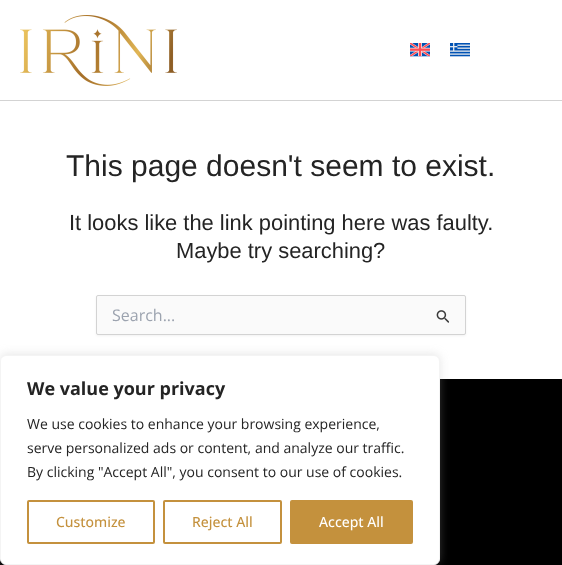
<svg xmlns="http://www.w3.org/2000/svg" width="562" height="565">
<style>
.a{font:30px Liberation Sans;fill:#242424}
.b{font:21.9px Liberation Sans;fill:#242424}
.c{font:16px Open Sans;fill:#9ca3af}
.d{font:bold 18px Open Sans;fill:#242424}
.e{font:14px Open Sans;fill:#242424}
.f{font:500 14px Open Sans;fill:#c4913d}
.g{font:500 14px Open Sans;fill:#fff}
</style>
<rect width="100%" height="100%" fill="#fff"/>
<path fill="#d3d3d3" d="M0 100h562v1H0z"/>
<image href="1.png" x="20" y="15" width="157" height="71"/>
<image href="2.png" x="410" y="43" width="20" height="14"/>
<image href="3.png" x="450" y="43" width="20" height="14"/>
<rect fill="#0000000d" filter="blur(1px)" x="96" y="296" width="370" height="40" rx="2"/>
<rect fill="#fafafa" stroke="#d3d3d3" x="96.5" y="295.5" width="369" height="39" rx="1.5"/>
<image href="4.png" x="436" y="310" width="13" height="13"/>
<path fill="#000" d="M0 379h562v186H0z"/>
<rect fill="#acabab4d" filter="blur(5px)" y="354" width="440" height="210" rx="6"/>
<rect fill="#fff" stroke="#f4f4f4" x="0.5" y="355.5" width="439" height="209" rx="5.5"/>
<rect fill="none" stroke="#c4913d" stroke-width="2" x="28" y="501" width="126" height="42" rx="1"/>
<rect fill="none" stroke="#c4913d" stroke-width="2" x="164" y="501" width="117" height="42" rx="1"/>
<rect fill="#c4913d" stroke="#c4913d" stroke-width="2" x="291" y="501" width="121" height="42" rx="1"/>
<text class="a" x="66" y="176">This page doesn't seem to exist.</text>
<text class="b" x="69" y="230">It looks like the link pointing here was faulty.</text>
<text class="b" x="176" y="258">Maybe try searching?</text>
<text class="c" x="112" y="321">Search...</text>
<text class="d" x="27" y="395">We value your privacy</text>
<text class="e" x="27" y="429">We use cookies to enhance your browsing experience,</text>
<text class="e" x="27" y="453">serve personalized ads or content, and analyze our traffic.</text>
<text class="e" x="27" y="477">By clicking "Accept All", you consent to our use of cookies.</text>
<text class="f" x="56" y="527">Customize</text>
<text class="f" x="192" y="527">Reject All</text>
<text class="g" x="319" y="527">Accept All</text>
</svg>
